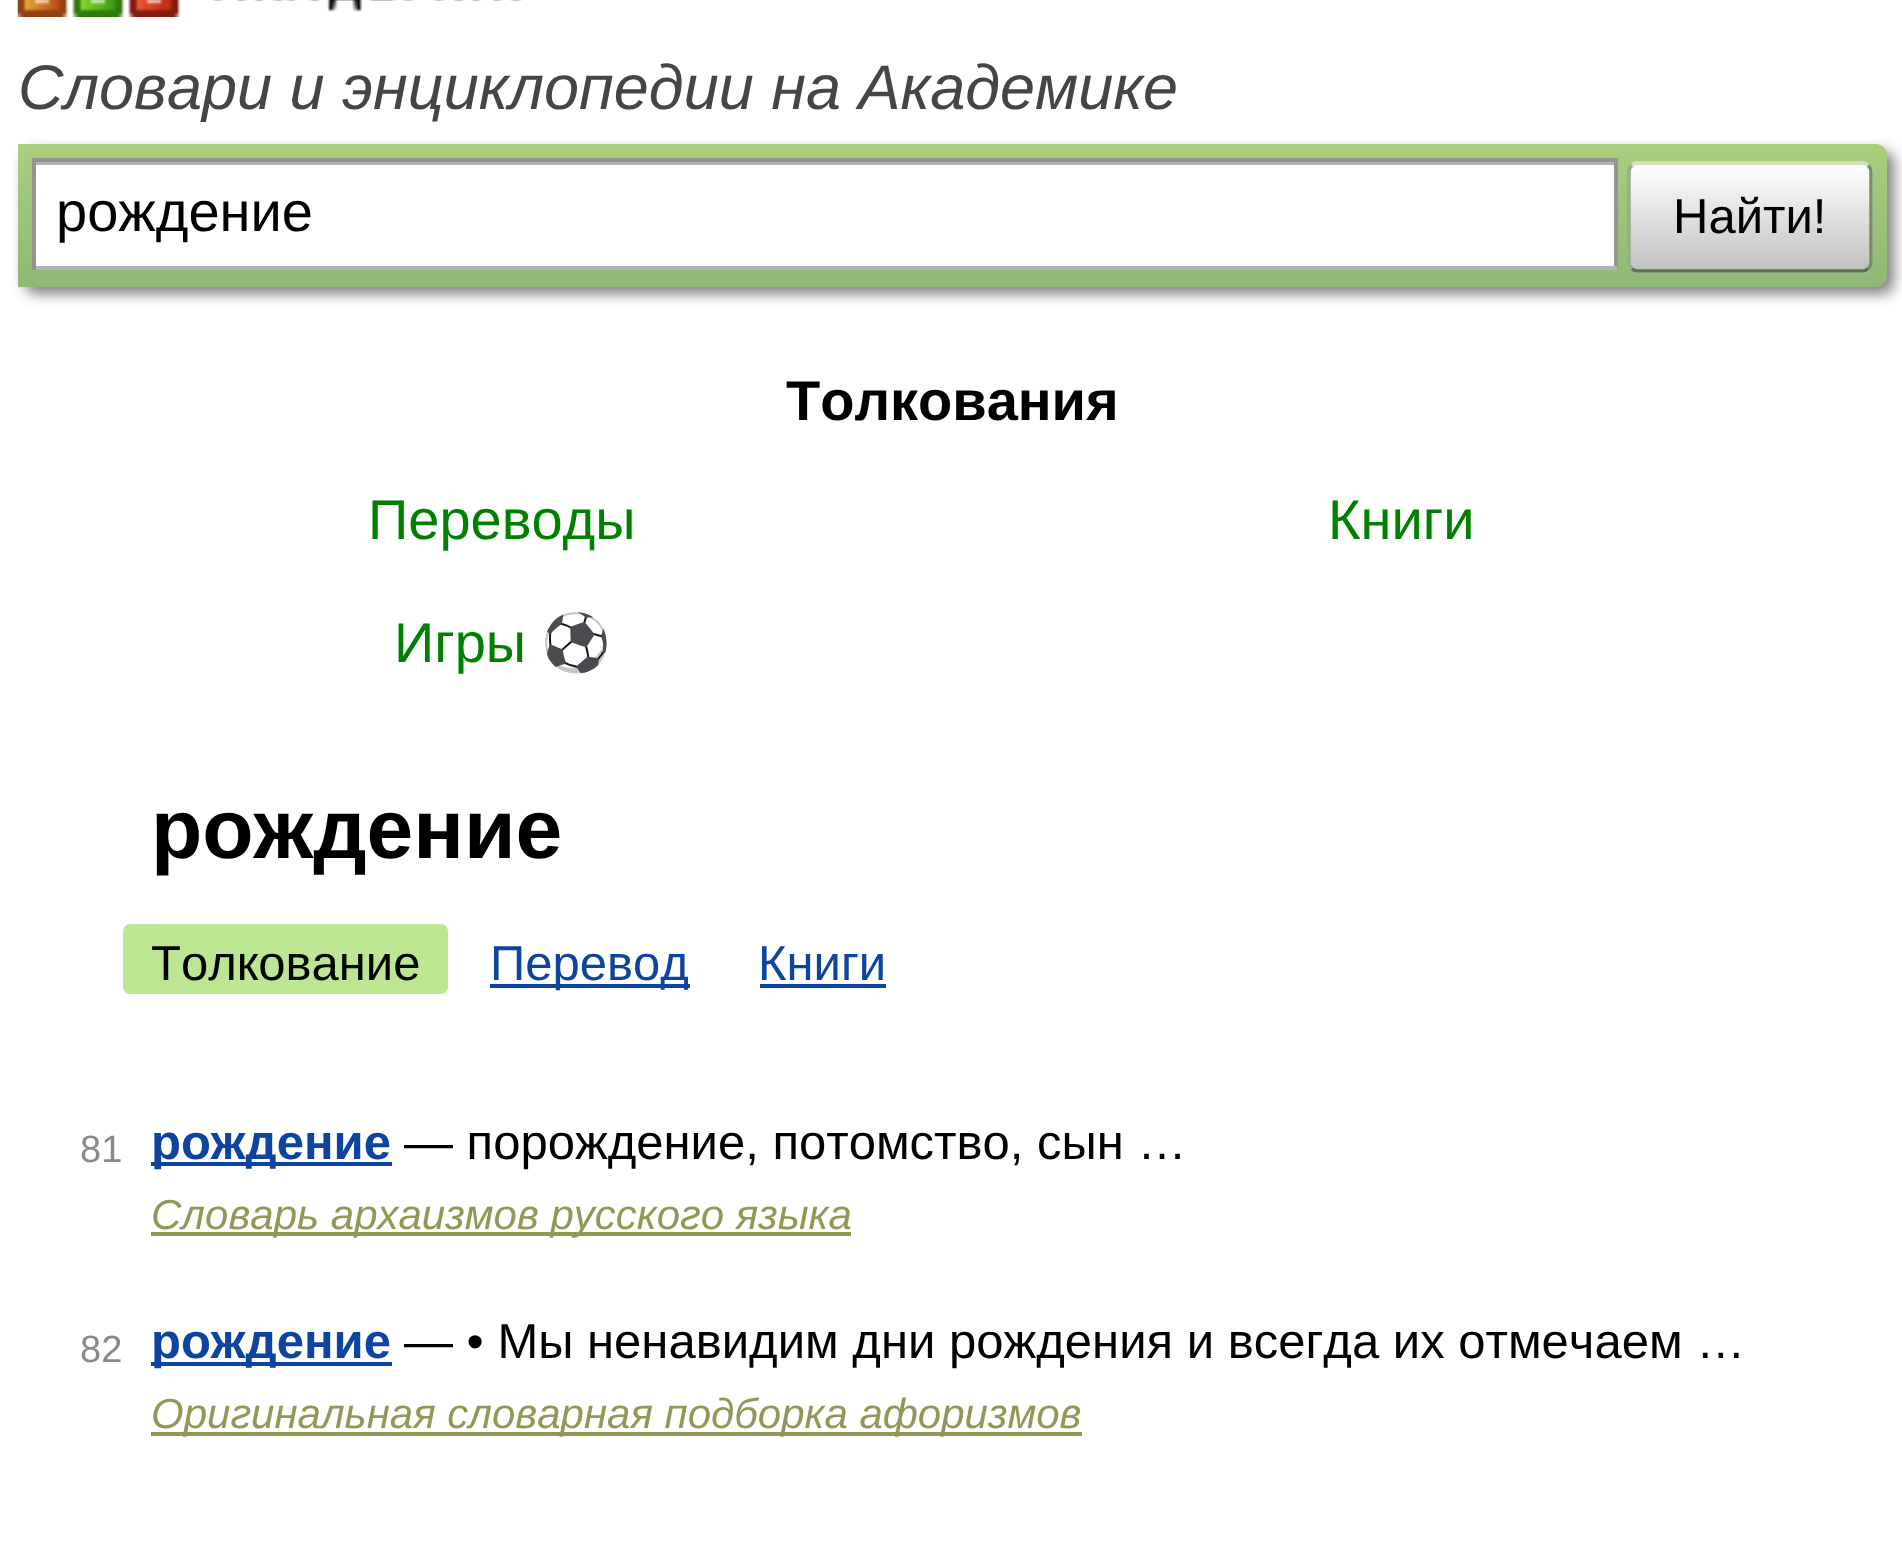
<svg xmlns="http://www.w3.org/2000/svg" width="1902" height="1542">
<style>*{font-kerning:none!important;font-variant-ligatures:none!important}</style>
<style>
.a{font:italic 63px Liberation Sans;fill:#454545}
.b{font:56px Liberation Sans;fill:#000}
.c{font:49px Liberation Sans;fill:#000}
.d{font:bold 56px Liberation Sans;fill:#000}
.e{font:56px Liberation Sans;fill:#008000}
.f{font:56px Noto Color Emoji;fill:#008000}
.g{font:bold 84px Liberation Sans;fill:#000}
.h{font:49px Liberation Sans;fill:#0d44a0}
.i{font:38px Liberation Sans;fill:#898989}
.j{font:bold 49px Liberation Sans;fill:#0d44a0}
.k{font:italic 42px Liberation Sans;fill:#939756}
</style>
<defs>
<linearGradient id="g1" gradientUnits="userSpaceOnUse" x1="952" y1="143" x2="952" y2="287"><stop offset="0" stop-color="#abcf7e"/><stop offset="1" stop-color="#8eb874"/></linearGradient>
<clipPath id="clip1"><rect x="1628" y="161" width="245" height="112" rx="11"/></clipPath>
<linearGradient id="g2" gradientUnits="userSpaceOnUse" x1="1750" y1="59" x2="1750" y2="165"><stop offset="0" stop-color="#fff"/><stop offset="1" stop-color="#c1c1c1"/></linearGradient>
<linearGradient id="g3" gradientUnits="userSpaceOnUse" x1="1750" y1="165" x2="1750" y2="270"><stop offset="0" stop-color="#fff"/><stop offset="1" stop-color="#c1c1c1"/></linearGradient>
<linearGradient id="g4" gradientUnits="userSpaceOnUse" x1="1750" y1="270" x2="1750" y2="375"><stop offset="0" stop-color="#fff"/><stop offset="1" stop-color="#c1c1c1"/></linearGradient>
</defs>
<rect width="100%" height="100%" fill="#fff"/>
<image href="1.png" x="17" y="0" width="505" height="17"/>
<rect fill="#00000080" filter="blur(7px)" x="25" y="151" width="1869" height="143" rx="11"/>
<path fill="url(#g1)" d="M18 144h1858c6 0 11 5 11 11v121c0 6-5 11-11 11h-1858z"/>
<path fill="#fff" d="M36 165h1578v101H36z"/>
<path fill="#b3b3b3" d="M35 162h1579v3H35z"/>
<path fill="#949494" d="M32 158h1585v4H32z"/>
<path fill="#949494" d="M1614 158h4v112H1614z"/>
<path fill="#b4b4b4" d="M32 266h1585v4H32z"/>
<path fill="#949494" d="M32 158h4v112H32z"/>
<g clip-path="url(#clip1)">
<path fill="url(#g2)" d="M1628 161h245v4H1628z"/>
<path fill="url(#g3)" d="M1628 165h245v105H1628z"/>
<path fill="url(#g4)" d="M1628 270h245v3H1628z"/>
</g>
<path fill="none" stroke="#d1e4bc" stroke-width="3.5" d="M1632 165.5c1.5-2 3.5-2.5 6-2.5h224c2.5 0 4.5 .5 6 2.5"/>
<path fill="none" stroke="#7a8e69" stroke-width="3.5" d="M1868 165.5c2 1.5 3 3.5 3 6v91c0 2.5-1 4.5-3 6"/>
<path fill="none" stroke="#5d7250" stroke-width="3.5" d="M1868 268.5c-1.5 2-3.5 2.5-6 2.5h-224c-2.5 0-4.5-.5-6-2.5"/>
<path fill="none" stroke="#9aae89" stroke-width="3.5" d="M1632 268.5c-2-1.5-3-3.5-3-6v-91c0-2.5 1-4.5 3-6"/>
<rect fill="#bde693" x="123" y="924" width="325" height="70" rx="7"/>
<path fill="#0d44a0" d="M490 984h200v4H490z"/>
<path fill="#0d44a0" d="M760 984h126v4H760z"/>
<path fill="#0d44a0" d="M151 1162h241v4H151z"/>
<path fill="#939756" d="M151 1232h700v4H151z"/>
<path fill="#0d44a0" d="M151 1362h241v4H151z"/>
<path fill="#939756" d="M151 1432h931v4H151z"/>
<text class="a" x="18" y="109">Словари и энциклопедии на Академике</text>
<text class="b" x="56" y="231">рождение</text>
<text class="c" x="1673" y="233">Найти!</text>
<text class="d" x="786" y="420">Толкования</text>
<text class="e" x="368" y="539">Переводы</text>
<text class="e" x="1328" y="539">Книги</text>
<text class="e" x="394" y="662">Игры</text>
<text class="f" x="541" y="662">⚽</text>
<text class="g" x="151" y="858">рождение</text>
<text class="c" x="151" y="980">Толкование</text>
<text class="h" x="490" y="980">Перевод</text>
<text class="h" x="758" y="980">Книги</text>
<text class="i" x="80" y="1162">81</text>
<text class="j" x="151" y="1159">рождение</text>
<text class="c" x="404" y="1159">— порождение, потомство, сын …</text>
<text class="k" x="151" y="1229">Cловарь архаизмов русского языка</text>
<text class="i" x="80" y="1362">82</text>
<text class="j" x="151" y="1358">рождение</text>
<text class="c" x="404" y="1358">— • Мы ненавидим дни рождения и всегда их отмечаем …</text>
<text class="k" x="151" y="1428">Оригинальная словарная подборка афоризмов</text>
</svg>
